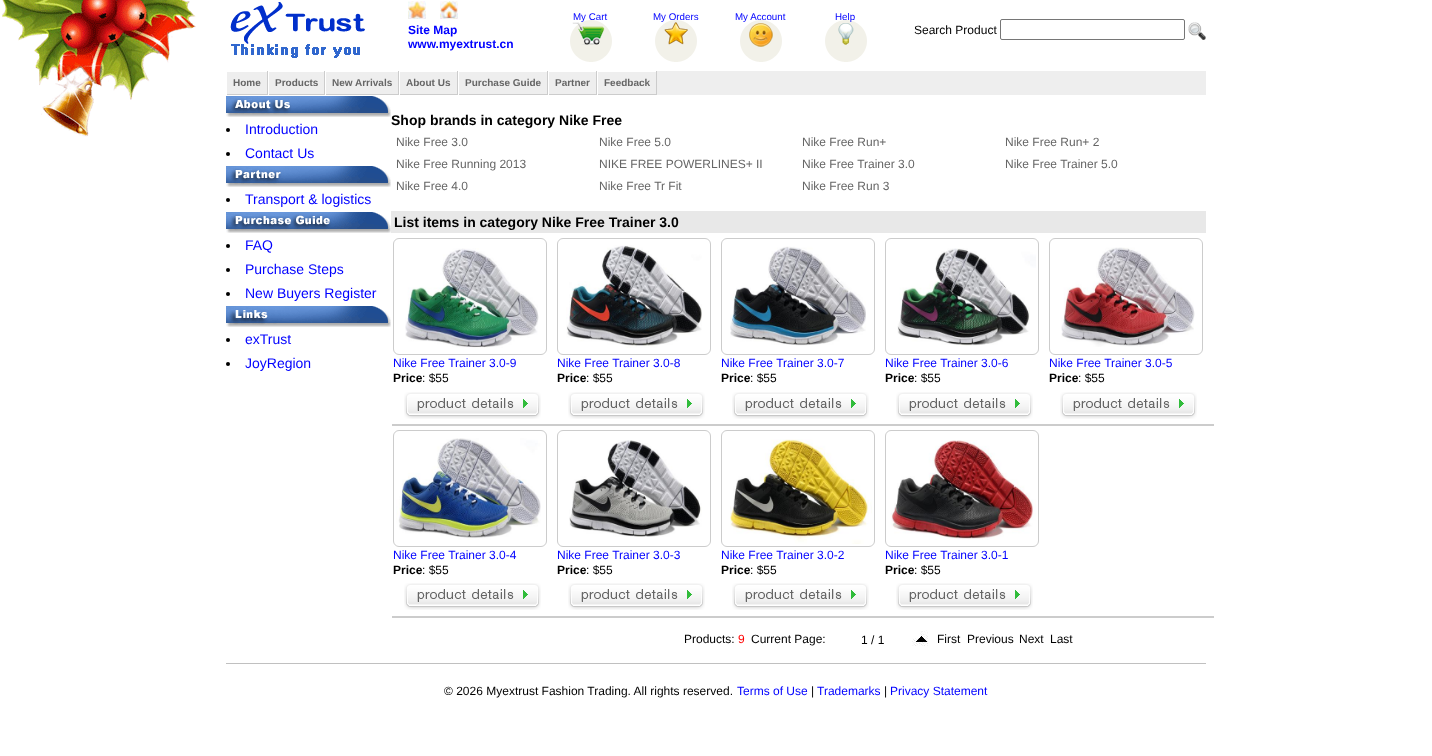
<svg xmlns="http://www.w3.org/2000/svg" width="1432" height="756">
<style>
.a{font:9.75px Liberation Sans;fill:#00f}
.b{font:bold 12px Liberation Sans;fill:#00f}
.c{font:12px Liberation Sans;fill:#000}
.d{font:bold 10px Liberation Sans;fill:#666}
.e{font:14px Liberation Sans;fill:#00f}
.f{font:bold 14px Liberation Sans;fill:#000}
.g{font:12px Liberation Sans;fill:#666}
.h{font:12px Liberation Sans;fill:#00f}
.i{font:bold 12px Liberation Sans;fill:#000}
.j{font:12px Liberation Sans;fill:#f00}
</style>
<rect width="100%" height="100%" fill="#fff"/>
<image href="1.png" x="2" y="0" width="194" height="137"/>
<image href="2.png" x="230" y="2" width="135" height="56"/>
<image href="3.png" x="570" y="20" width="42" height="42"/>
<image href="4.png" x="655" y="20" width="42" height="42"/>
<image href="5.png" x="740" y="20" width="42" height="42"/>
<image href="6.png" x="825" y="20" width="42" height="42"/>
<image href="7.png" x="408" y="1" width="18" height="18"/>
<image href="8.png" x="440" y="1" width="18" height="18"/>
<rect fill="none" stroke="#767676" x="1000.5" y="19.5" width="184" height="20" rx="1.5"/>
<image href="9.png" x="1188" y="22" width="18" height="18"/>
<path fill="#eee" d="M227 71h979v24H227z"/>
<path fill="#fff" d="M226 71h431v1H226z"/>
<path fill="#ccc" d="M267 71h1v24H267z"/>
<path fill="#ccc" d="M226 94h42v1H226z"/>
<path fill="#fff" d="M226 94h1v1H226z"/>
<path fill="#ccc" d="M324 71h1v24H324z"/>
<path fill="#ccc" d="M268 94h57v1H268z"/>
<path fill="#fff" d="M268 71h1v24H268z"/>
<path fill="#ccc" d="M398 71h1v24H398z"/>
<path fill="#ccc" d="M325 94h74v1H325z"/>
<path fill="#fff" d="M325 71h1v24H325z"/>
<path fill="#ccc" d="M457 71h1v24H457z"/>
<path fill="#ccc" d="M399 94h59v1H399z"/>
<path fill="#fff" d="M399 71h1v24H399z"/>
<path fill="#ccc" d="M547 71h1v24H547z"/>
<path fill="#ccc" d="M458 94h90v1H458z"/>
<path fill="#fff" d="M458 71h1v24H458z"/>
<path fill="#ccc" d="M596 71h1v24H596z"/>
<path fill="#ccc" d="M548 94h49v1H548z"/>
<path fill="#fff" d="M548 71h1v24H548z"/>
<path fill="#ccc" d="M656 71h1v24H656z"/>
<path fill="#ccc" d="M597 94h60v1H597z"/>
<path fill="#fff" d="M597 71h1v24H597z"/>
<image href="10.png" x="226" y="96" width="165" height="21"/>
<circle fill="#000" cx="228" cy="130" r="2"/>
<circle fill="#000" cx="228" cy="154" r="2"/>
<image href="11.png" x="226" y="166" width="165" height="21"/>
<circle fill="#000" cx="228" cy="200" r="2"/>
<image href="12.png" x="226" y="212" width="165" height="21"/>
<circle fill="#000" cx="228" cy="246" r="2"/>
<circle fill="#000" cx="228" cy="270" r="2"/>
<circle fill="#000" cx="228" cy="294" r="2"/>
<image href="13.png" x="226" y="306" width="165" height="21"/>
<circle fill="#000" cx="228" cy="340" r="2"/>
<circle fill="#000" cx="228" cy="364" r="2"/>
<path fill="#e8e8e8" d="M391 211h815v22H391z"/>
<path fill="#ccc" d="M392 424h822v2H392z"/>
<rect fill="none" stroke="#ccc" x="393.5" y="238.5" width="153" height="116" rx="5.5"/>
<image href="14.png" x="405" y="248" width="134" height="100"/>
<image href="15.png" x="404" y="392" width="137" height="27"/>
<rect fill="none" stroke="#ccc" x="557.5" y="238.5" width="153" height="116" rx="5.5"/>
<image href="16.png" x="566" y="245" width="136" height="103"/>
<image href="15.png" x="568" y="392" width="137" height="27"/>
<rect fill="none" stroke="#ccc" x="721.5" y="238.5" width="153" height="116" rx="5.5"/>
<image href="17.png" x="730" y="246" width="136" height="100"/>
<image href="15.png" x="732" y="392" width="137" height="27"/>
<rect fill="none" stroke="#ccc" x="885.5" y="238.5" width="153" height="116" rx="5.5"/>
<image href="18.png" x="897" y="248" width="139" height="98"/>
<image href="15.png" x="896" y="392" width="137" height="27"/>
<rect fill="none" stroke="#ccc" x="1049.5" y="238.5" width="153" height="116" rx="5.5"/>
<image href="19.png" x="1061" y="247" width="134" height="100"/>
<image href="15.png" x="1060" y="392" width="137" height="27"/>
<path fill="#ccc" d="M392 616h822v2H392z"/>
<rect fill="none" stroke="#ccc" x="393.5" y="430.5" width="153" height="116" rx="5.5"/>
<image href="20.png" x="396" y="438" width="145" height="102"/>
<image href="15.png" x="404" y="583" width="137" height="27"/>
<rect fill="none" stroke="#ccc" x="557.5" y="430.5" width="153" height="116" rx="5.5"/>
<image href="21.png" x="569" y="440" width="133" height="97"/>
<image href="15.png" x="568" y="583" width="137" height="27"/>
<rect fill="none" stroke="#ccc" x="721.5" y="430.5" width="153" height="116" rx="5.5"/>
<image href="22.png" x="730" y="439" width="142" height="105"/>
<image href="15.png" x="732" y="583" width="137" height="27"/>
<rect fill="none" stroke="#ccc" x="885.5" y="430.5" width="153" height="116" rx="5.5"/>
<image href="23.png" x="890" y="440" width="146" height="100"/>
<image href="15.png" x="896" y="583" width="137" height="27"/>
<image href="24.png" x="912" y="630" width="16" height="16"/>
<path fill="#c0c0c0" d="M226 663h980v1H226z"/>
<text class="a" x="573" y="20">My Cart</text>
<text class="a" x="653" y="20">My Orders</text>
<text class="a" x="735" y="20">My Account</text>
<text class="a" x="835" y="20">Help</text>
<text class="b" x="408" y="34">Site Map</text>
<text class="b" x="408" y="48">www.myextrust.cn</text>
<text class="c" x="914" y="34">Search Product</text>
<text class="d" x="233" y="86">Home</text>
<text class="d" x="275" y="86">Products</text>
<text class="d" x="332" y="86">New Arrivals</text>
<text class="d" x="406" y="86">About Us</text>
<text class="d" x="465" y="86">Purchase Guide</text>
<text class="d" x="555" y="86">Partner</text>
<text class="d" x="604" y="86">Feedback</text>
<text class="e" x="245" y="134">Introduction</text>
<text class="e" x="245" y="158">Contact Us</text>
<text class="e" x="245" y="204">Transport &amp; logistics</text>
<text class="e" x="245" y="250">FAQ</text>
<text class="e" x="245" y="274">Purchase Steps</text>
<text class="e" x="245" y="298">New Buyers Register</text>
<text class="e" x="245" y="344">exTrust</text>
<text class="e" x="245" y="368">JoyRegion</text>
<text class="f" x="391" y="125">Shop brands in category Nike Free</text>
<text class="g" x="396" y="146">Nike Free 3.0</text>
<text class="g" x="599" y="146">Nike Free 5.0</text>
<text class="g" x="802" y="146">Nike Free Run+</text>
<text class="g" x="1005" y="146">Nike Free Run+ 2</text>
<text class="g" x="396" y="168">Nike Free Running 2013</text>
<text class="g" x="599" y="168">NIKE FREE POWERLINES+ II</text>
<text class="g" x="802" y="168">Nike Free Trainer 3.0</text>
<text class="g" x="1005" y="168">Nike Free Trainer 5.0</text>
<text class="g" x="396" y="190">Nike Free 4.0</text>
<text class="g" x="599" y="190">Nike Free Tr Fit</text>
<text class="g" x="802" y="190">Nike Free Run 3</text>
<text class="f" x="394" y="227">List items in category Nike Free Trainer 3.0</text>
<text class="h" x="393" y="367">Nike Free Trainer 3.0-9</text>
<text class="i" x="393" y="382">Price</text>
<text class="c" x="422" y="382">: $55</text>
<text class="h" x="557" y="367">Nike Free Trainer 3.0-8</text>
<text class="i" x="557" y="382">Price</text>
<text class="c" x="586" y="382">: $55</text>
<text class="h" x="721" y="367">Nike Free Trainer 3.0-7</text>
<text class="i" x="721" y="382">Price</text>
<text class="c" x="750" y="382">: $55</text>
<text class="h" x="885" y="367">Nike Free Trainer 3.0-6</text>
<text class="i" x="885" y="382">Price</text>
<text class="c" x="914" y="382">: $55</text>
<text class="h" x="1049" y="367">Nike Free Trainer 3.0-5</text>
<text class="i" x="1049" y="382">Price</text>
<text class="c" x="1078" y="382">: $55</text>
<text class="h" x="393" y="559">Nike Free Trainer 3.0-4</text>
<text class="i" x="393" y="574">Price</text>
<text class="c" x="422" y="574">: $55</text>
<text class="h" x="557" y="559">Nike Free Trainer 3.0-3</text>
<text class="i" x="557" y="574">Price</text>
<text class="c" x="586" y="574">: $55</text>
<text class="h" x="721" y="559">Nike Free Trainer 3.0-2</text>
<text class="i" x="721" y="574">Price</text>
<text class="c" x="750" y="574">: $55</text>
<text class="h" x="885" y="559">Nike Free Trainer 3.0-1</text>
<text class="i" x="885" y="574">Price</text>
<text class="c" x="914" y="574">: $55</text>
<text class="c" x="684" y="643">Products:</text>
<text class="j" x="738" y="643">9</text>
<text class="c" x="751" y="643">Current Page:</text>
<text class="c" x="861" y="644">1 / 1</text>
<text class="c" x="937" y="643">First</text>
<text class="c" x="967" y="643">Previous</text>
<text class="c" x="1019" y="643">Next</text>
<text class="c" x="1050" y="643">Last</text>
<text class="c" x="444" y="695">© 2026 Myextrust Fashion Trading. All rights reserved.</text>
<text class="h" x="737" y="695">Terms of Use</text>
<text class="c" x="811" y="695">|</text>
<text class="h" x="817" y="695">Trademarks</text>
<text class="c" x="884" y="695">|</text>
<text class="h" x="890" y="695">Privacy Statement</text>
</svg>
